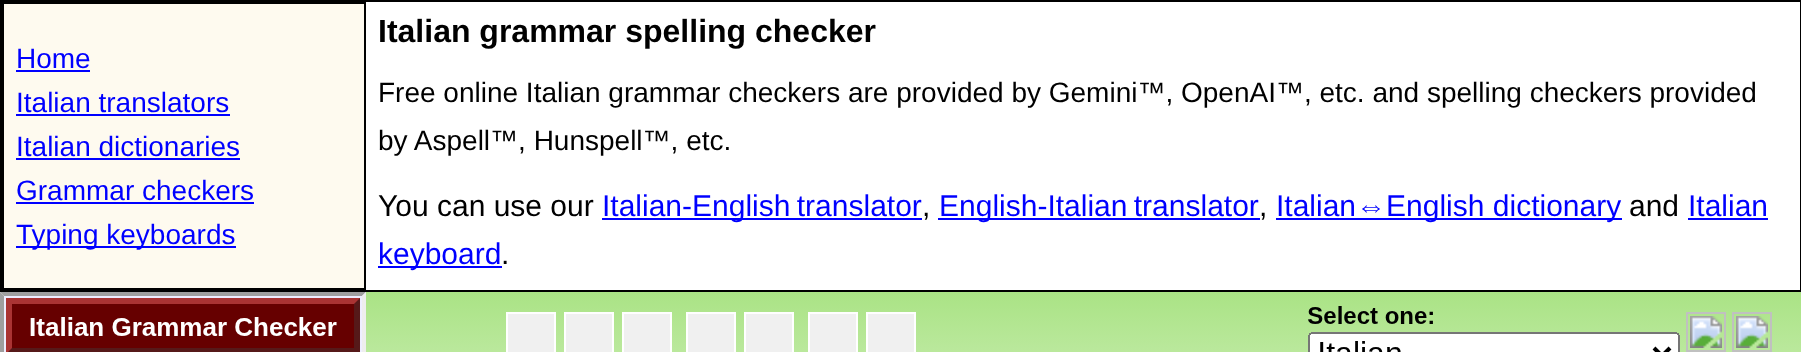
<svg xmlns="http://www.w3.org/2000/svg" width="1801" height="352">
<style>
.a{font:28px Liberation Sans;fill:#00f}
.b{font:bold 32px Liberation Sans;fill:#000}
.c{font:28px Liberation Sans;fill:#000}
.d{font:30px Liberation Sans;fill:#000}
.e{font:30px Liberation Sans;fill:#00f}
</style>
<rect width="100%" height="100%" fill="#fff"/>
<path fill="none" stroke="#000" stroke-width="2" d="M1 1h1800v290H1z"/>
<path fill="#fefaef" stroke="#000" stroke-width="2" d="M3 3h362v286H3z"/>
<path fill="#00f" d="M16 70h74v2H16z"/>
<path fill="#00f" d="M16 114h214v2H16z"/>
<path fill="#00f" d="M16 158h224v2H16z"/>
<path fill="#00f" d="M16 202h238v2H16z"/>
<path fill="#00f" d="M16 246h220v2H16z"/>
<path fill="#00f" d="M602 218h320v2H602z"/>
<path fill="#00f" d="M938 218h322v2H938z"/>
<path fill="#00f" d="M1276 218h346v2H1276z"/>
<path fill="#00f" d="M1688 218h80v2H1688z"/>
<path fill="#00f" d="M378 266h124v2H378z"/>
<path fill="#9f9f9f" d="M0 292h366l-4 4h-358z"/>
<path fill="#9f9f9f" d="M0 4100v-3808l4 4v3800z"/>
<image href="1.png" x="4" y="296" width="358" height="56"/>
<path fill="#eee" d="M366 292v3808l-4-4v-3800z"/>
<image href="2.png" x="366" y="292" width="1435" height="60"/>
<text class="a" x="16" y="68">Home</text>
<text class="a" x="16" y="112">Italian translators</text>
<text class="a" x="16" y="156">Italian dictionaries</text>
<text class="a" x="16" y="200">Grammar checkers</text>
<text class="a" x="16" y="244">Typing keyboards</text>
<text class="b" x="378" y="42">Italian grammar spelling checker</text>
<text class="c" x="378" y="102">Free online Italian grammar checkers are provided by Gemini™, OpenAI™, etc. and spelling checkers provided</text>
<text class="c" x="378" y="150">by Aspell™, Hunspell™, etc.</text>
<text class="d" x="378" y="216">You can use our</text>
<text class="e" x="602" y="216" word-spacing="-2">Italian-English translator</text>
<text class="d" x="922" y="216">,</text>
<text class="e" x="939" y="216" word-spacing="-2">English-Italian translator</text>
<text class="d" x="1259" y="216">,</text>
<text class="e" x="1276" y="216">Italian⇔English dictionary</text>
<text class="d" x="1629" y="216">and</text>
<text class="e" x="1688" y="216">Italian</text>
<text class="e" x="378" y="264">keyboard</text>
<text class="d" x="501" y="264">.</text>
</svg>
